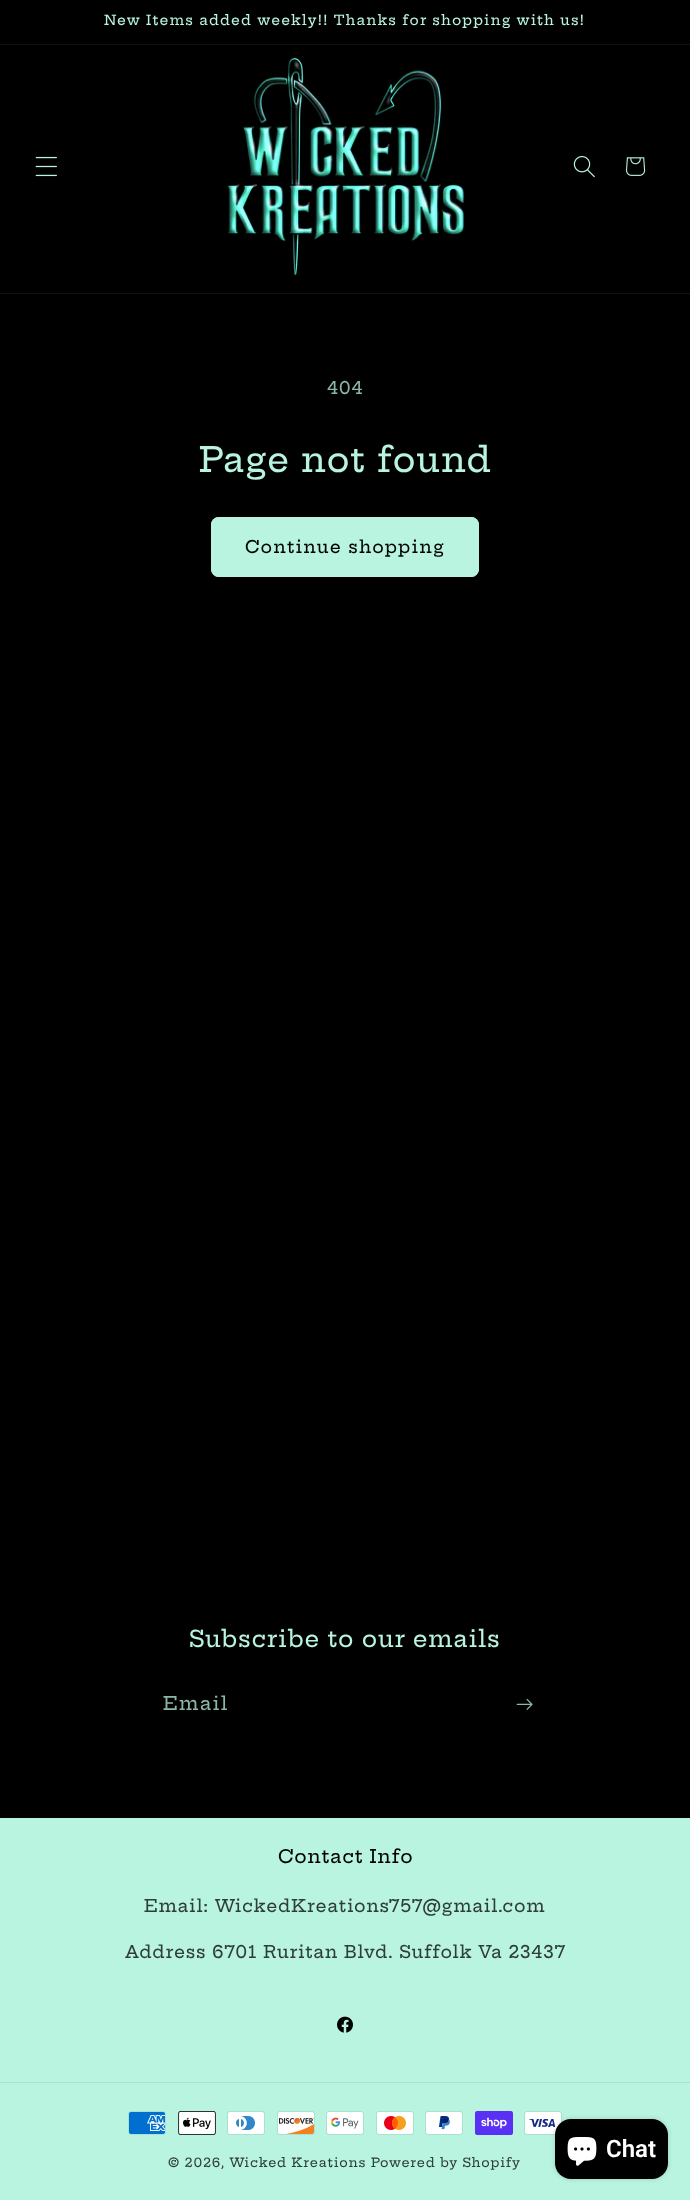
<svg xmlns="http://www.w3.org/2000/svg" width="690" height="2200">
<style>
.a{font:500 13.8px Hepta Slab;letter-spacing:1.15px;fill:#b8f4df}
.b{font:500 17.25px Hepta Slab;letter-spacing:0.7px;fill:#8ab7a7}
.c{font:500 34.5px Hepta Slab;letter-spacing:0.7px;fill:#b8f4df}
.d{font:500 17.25px Hepta Slab;letter-spacing:1.15px;fill:#000}
.e{font:500 23px Hepta Slab;letter-spacing:0.7px;fill:#b8f4df}
.f{font:500 18.5px Hepta Slab;letter-spacing:1.15px;fill:#8ab7a7}
.g{font:500 18.5px Hepta Slab;letter-spacing:0.7px;fill:#000}
.h{font:500 17.25px Hepta Slab;letter-spacing:0.7px;fill:#2e3d38}
.i{font:500 12.6px Hepta Slab;letter-spacing:0.8px;fill:#2e3d38}
.j{font:600 24px Roboto;fill:#fff}
</style>
<rect width="100%" height="100%" fill="#000"/>
<path fill="#0f1412" d="M0 44h690v1H0z"/>
<path fill="#0f1412" d="M0 293h690v1H0z"/>
<image href="1.png" x="35" y="156" width="22" height="21"/>
<image href="2.png" x="226" y="57" width="239" height="219"/>
<image href="3.png" x="573" y="156" width="22" height="22"/>
<image href="4.png" x="626" y="157" width="20" height="19"/>
<rect fill="#b8f4df" x="211" y="517" width="268" height="60" rx="8"/>
<rect fill="none" stroke="#b8f4df" stroke-width="4" x="213" y="519" width="264" height="56" rx="6"/>
<image href="5.png" x="516" y="1698" width="17" height="12"/>
<path fill="#b8f4df" d="M0 1818h690v382H0z"/>
<image href="6.png" x="337" y="2016" width="16" height="17"/>
<path fill="#a9e0cd" d="M0 2082h690v1H0z"/>
<image href="7.png" x="128" y="2111" width="38" height="24"/>
<image href="8.png" x="178" y="2111" width="38" height="24"/>
<image href="9.png" x="227" y="2111" width="38" height="24"/>
<image href="10.png" x="277" y="2111" width="38" height="24"/>
<image href="11.png" x="326" y="2111" width="38" height="24"/>
<image href="12.png" x="376" y="2111" width="38" height="24"/>
<image href="13.png" x="425" y="2111" width="38" height="24"/>
<image href="14.png" x="475" y="2111" width="38" height="24"/>
<image href="15.png" x="524" y="2111" width="38" height="24"/>
<rect fill="#00000026" filter="blur(2.5px)" x="555" y="2119" width="113" height="60" rx="16"/>
<rect fill="#000" x="555" y="2119" width="113" height="60" rx="16"/>
<image href="16.png" x="567" y="2137" width="30" height="29"/>
<text class="a" x="104" y="25">New Items added weekly!! Thanks for shopping with us!</text>
<text class="b" x="327" y="394">404</text>
<text class="c" x="199" y="472">Page not found</text>
<text class="d" x="245" y="553">Continue shopping</text>
<text class="e" x="189" y="1647">Subscribe to our emails</text>
<text class="f" x="163" y="1710">Email</text>
<text class="g" x="278" y="1863">Contact Info</text>
<text class="h" x="144" y="1912">Email: WickedKreations757@gmail.com</text>
<text class="h" x="125" y="1958">Address 6701 Ruritan Blvd. Suffolk Va 23437</text>
<text class="i" x="168" y="2167">© 2026, Wicked Kreations</text>
<text class="i" x="371" y="2167">Powered by Shopify</text>
<text class="j" x="606" y="2157">Chat</text>
</svg>
